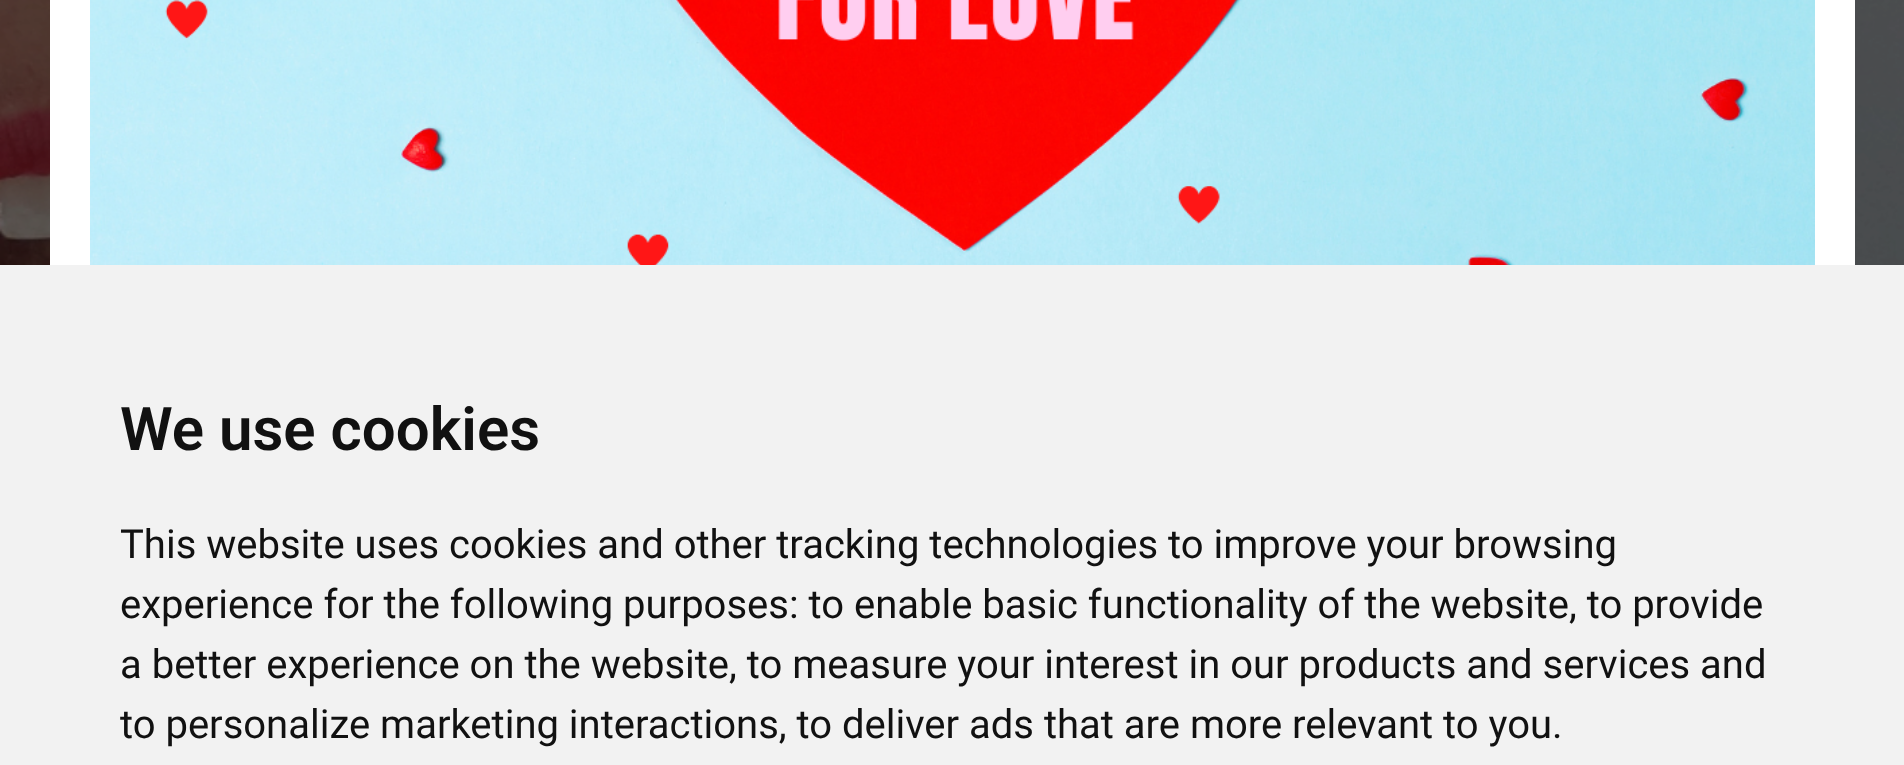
<svg xmlns="http://www.w3.org/2000/svg" width="1904" height="765">
<style>
.a{font:600 60px Roboto;fill:#111}
.b{font:40px Roboto;fill:#111}
</style>
<rect width="100%" height="100%" fill="#fff"/>
<image href="1.png" x="0" y="0" width="1904" height="265"/>
<path fill="none" stroke="#fff" stroke-width="40" d="M70 -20h1765v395H70z"/>
<image href="2.png" x="90" y="0" width="1725" height="265"/>
<path fill="#f2f2f2" d="M0 265h1904v500H0z"/>
<text class="a" x="120" y="450">We use cookies</text>
<text class="b" x="120" y="558">This website uses cookies and other tracking technologies to improve your browsing</text>
<text class="b" x="120" y="618">experience for the following purposes: to enable basic functionality of the website, to provide</text>
<text class="b" x="120" y="678">a better experience on the website, to measure your interest in our products and services and</text>
<text class="b" x="120" y="738">to personalize marketing interactions, to deliver ads that are more relevant to you.</text>
</svg>
